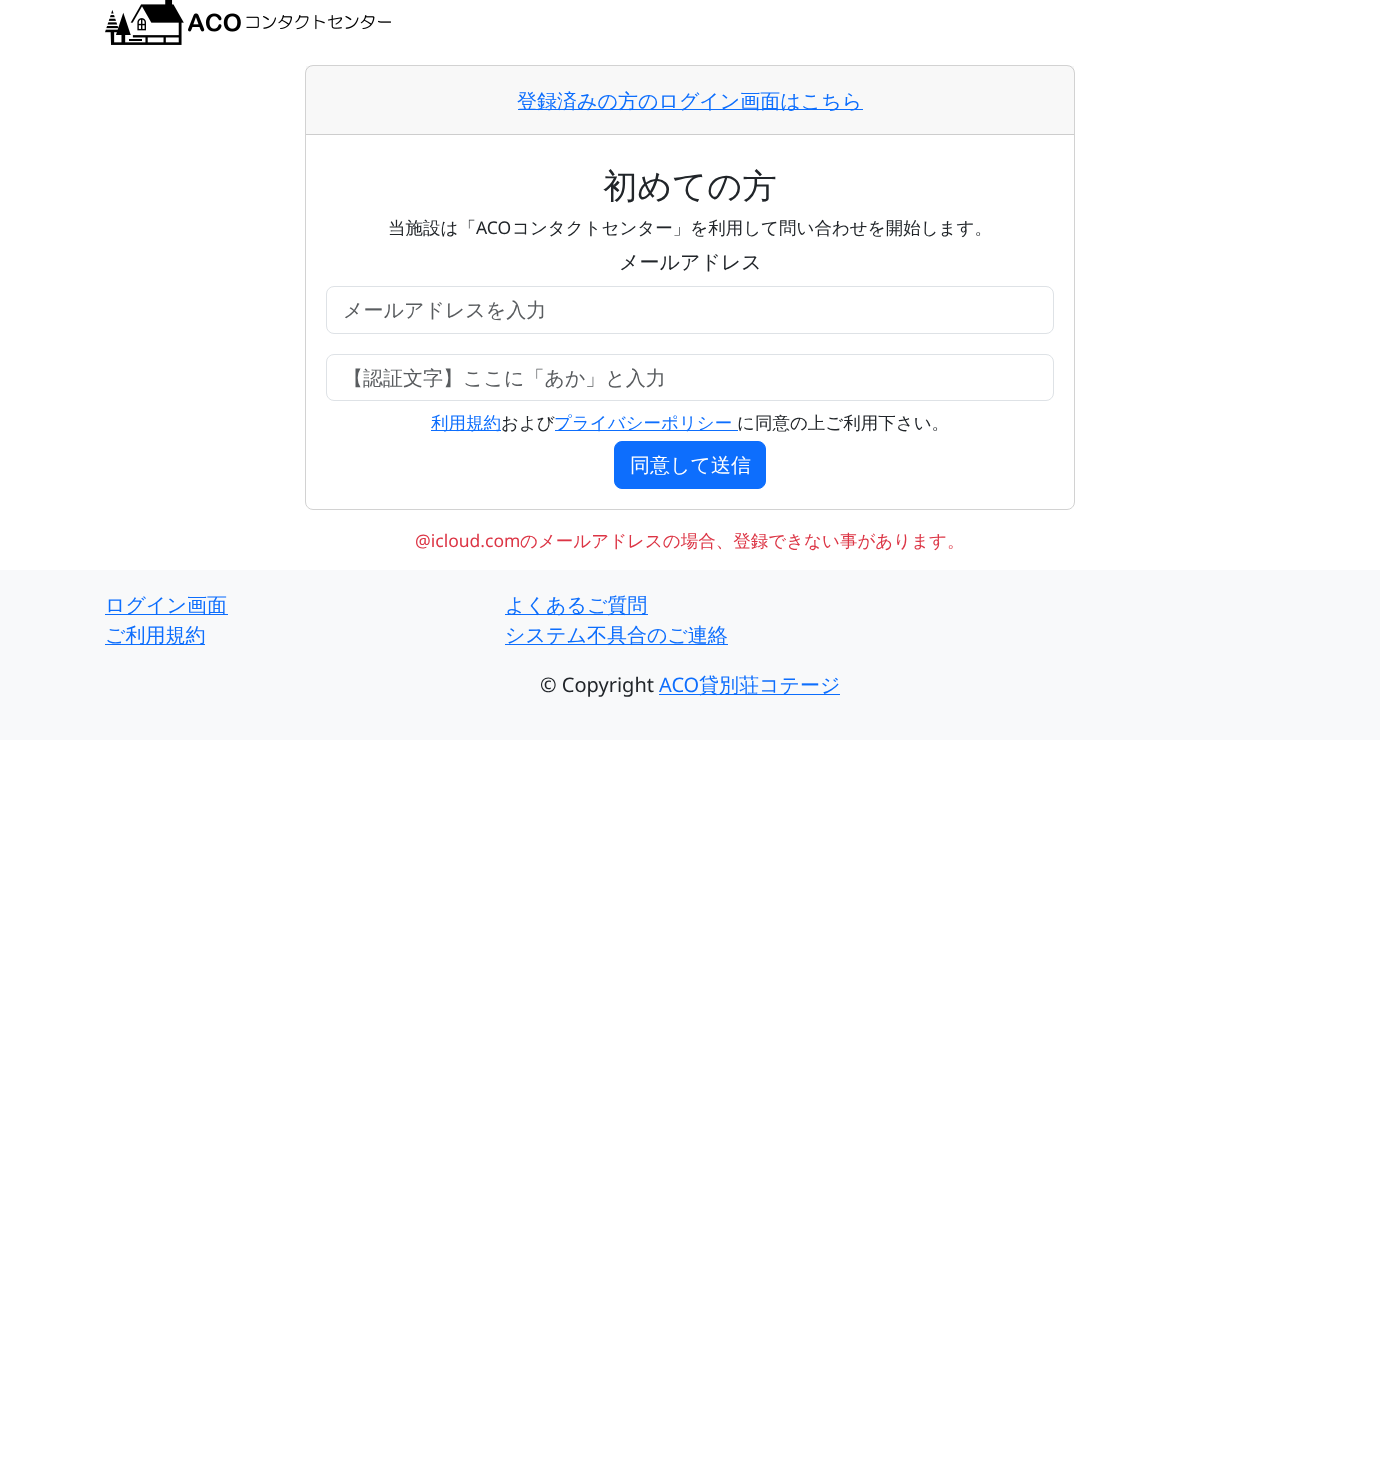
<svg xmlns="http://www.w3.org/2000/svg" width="1380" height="1478">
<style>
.a{font:500 20px WenQuanYi Zen Hei;fill:#0d6efd}
.b{font:500 34.25px WenQuanYi Zen Hei;fill:#212529}
.c{font:500 17.5px WenQuanYi Zen Hei;fill:#212529}
.d{font:17.5px Noto Sans;fill:#212529}
.e{font:500 20px WenQuanYi Zen Hei;fill:#212529}
.f{font:500 20px WenQuanYi Zen Hei;fill:#595c5f}
.g{font:500 17.5px WenQuanYi Zen Hei;fill:#0d6efd}
.h{font:500 20px WenQuanYi Zen Hei;fill:#fff}
.i{font:17.5px Noto Sans;fill:#dc3545}
.j{font:500 17.5px WenQuanYi Zen Hei;fill:#dc3545}
.k{font:20px Noto Sans;fill:#212529}
.l{font:20px Noto Sans;fill:#0d6efd}
</style>
<rect width="100%" height="100%" fill="#fff"/>
<image href="1.png" x="105" y="0" width="286" height="45"/>
<rect fill="none" stroke="#d2d2d2" x="305.5" y="65.5" width="769" height="444" rx="7.5"/>
<path fill="#21252908" d="M306 66h768v68H306z"/>
<path fill="#cdcdcd" d="M306 134h768v1H306z"/>
<path fill="#0d6efd" d="M518 109h345v1H518z"/>
<rect fill="none" stroke="#dee2e6" x="326.5" y="286.5" width="727" height="47" rx="7.5"/>
<rect fill="none" stroke="#dee2e6" x="326.5" y="354.5" width="727" height="46" rx="7.5"/>
<path fill="#0d6efd" d="M431 430h70v1H431z"/>
<path fill="#0d6efd" d="M555 430h183v1H555z"/>
<rect fill="#0d6efd" stroke="#0d6efd" x="614.5" y="441.5" width="151" height="47" rx="7.5"/>
<path fill="#f8f9fa" d="M0 570h1380v170H0z"/>
<path fill="#0d6efd" d="M105 614h123v1H105z"/>
<path fill="#0d6efd" d="M105 644h100v1H105z"/>
<path fill="#0d6efd" d="M505 614h143v1H505z"/>
<path fill="#0d6efd" d="M505 644h223v1H505z"/>
<path fill="#0d6efd" d="M659 694h181v1H659z"/>
<text class="a" x="517" y="108">登録済みの方のログイン画面はこちら</text>
<text class="b" x="603" y="198">初めての方</text>
<text class="c" x="388" y="234">当施設は「</text>
<text class="d" x="476" y="234">ACO</text>
<text class="c" x="512" y="234">コンタクトセンター」を利用して問い合わせを開始します。</text>
<text class="e" x="619" y="269">メールアドレス</text>
<text class="f" x="343" y="317">メールアドレスを入力</text>
<text class="f" x="343" y="385">【認証文字】ここに「あか」と入力</text>
<text class="g" x="431" y="429">利用規約</text>
<text class="c" x="501" y="429">および</text>
<text class="g" x="554" y="429">プライバシーポリシー</text>
<text class="c" x="737" y="429">に同意の上ご利用下さい。</text>
<text class="h" x="630" y="472">同意して送信</text>
<text class="i" x="415" y="547">@icloud.com</text>
<text class="j" x="520" y="547">のメールアドレスの場合、登録できない事があります。</text>
<text class="a" x="105" y="612">ログイン画面</text>
<text class="a" x="105" y="642">ご利用規約</text>
<text class="a" x="505" y="612">よくあるご質問</text>
<text class="a" x="505" y="642">システム不具合のご連絡</text>
<text class="k" x="540" y="692">© Copyright</text>
<text class="l" x="659" y="692">ACO</text>
<text class="a" x="699" y="692">貸別荘コテージ</text>
</svg>
